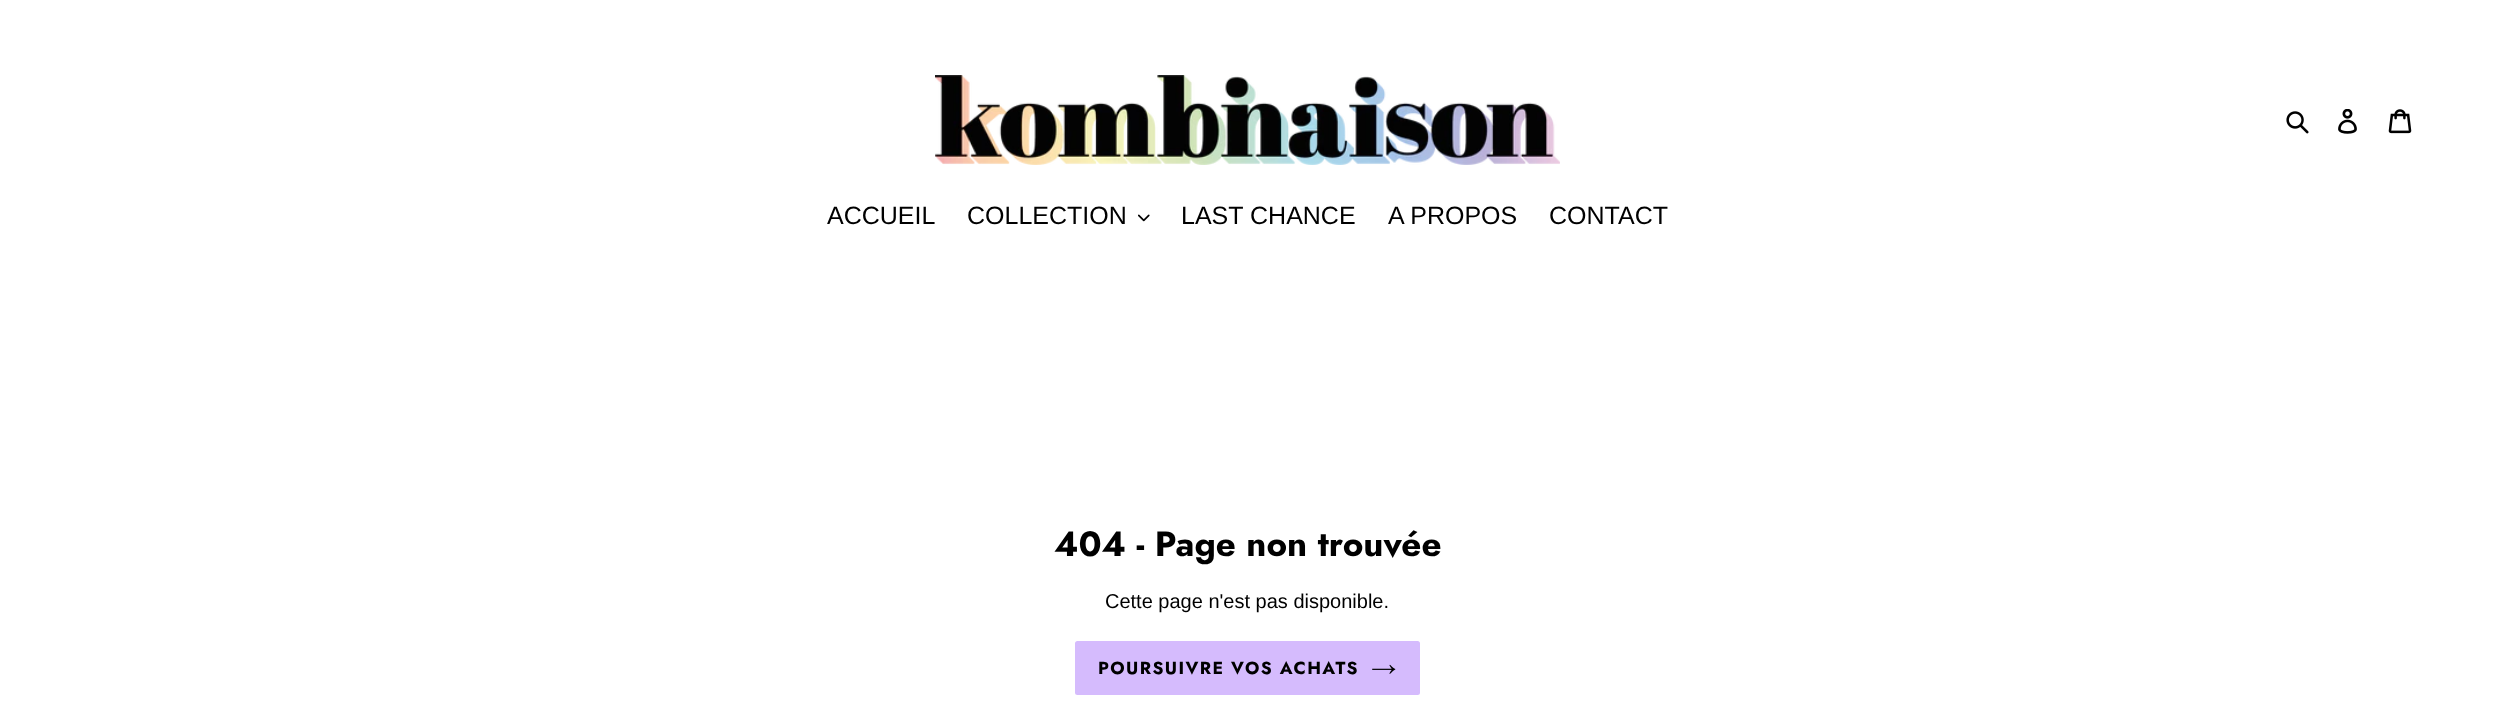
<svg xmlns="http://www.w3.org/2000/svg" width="2495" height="701">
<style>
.a{font:25px Liberation Sans;fill:#000}
.b{font:bold 35px Jost;fill:#000}
.c{font:20px Liberation Sans;fill:#000}
.d{font:bold 17.5px Jost;letter-spacing:1.4px;fill:#000}
</style>
<rect width="100%" height="100%" fill="#fff"/>
<image href="1.png" x="935" y="75" width="625" height="90"/>
<image href="2.png" x="2286" y="111" width="23" height="23"/>
<image href="3.png" x="2338" y="109" width="19" height="25"/>
<image href="4.png" x="2388" y="109" width="24" height="25"/>
<image href="5.png" x="1138" y="214" width="12" height="8"/>
<rect fill="#d5bbfd" x="1075" y="641" width="345" height="54" rx="2.5"/>
<image href="6.png" x="1372" y="664" width="24" height="10"/>
<text class="a" x="827" y="224">ACCUEIL</text>
<text class="a" x="967" y="224">COLLECTION</text>
<text class="a" x="1181" y="224">LAST CHANCE</text>
<text class="a" x="1388" y="224">A PROPOS</text>
<text class="a" x="1549" y="224">CONTACT</text>
<text class="b" x="1054" y="556">404 - Page non trouvée</text>
<text class="c" x="1105" y="608">Cette page n'est pas disponible.</text>
<text class="d" x="1098" y="674">POURSUIVRE VOS ACHATS</text>
</svg>
